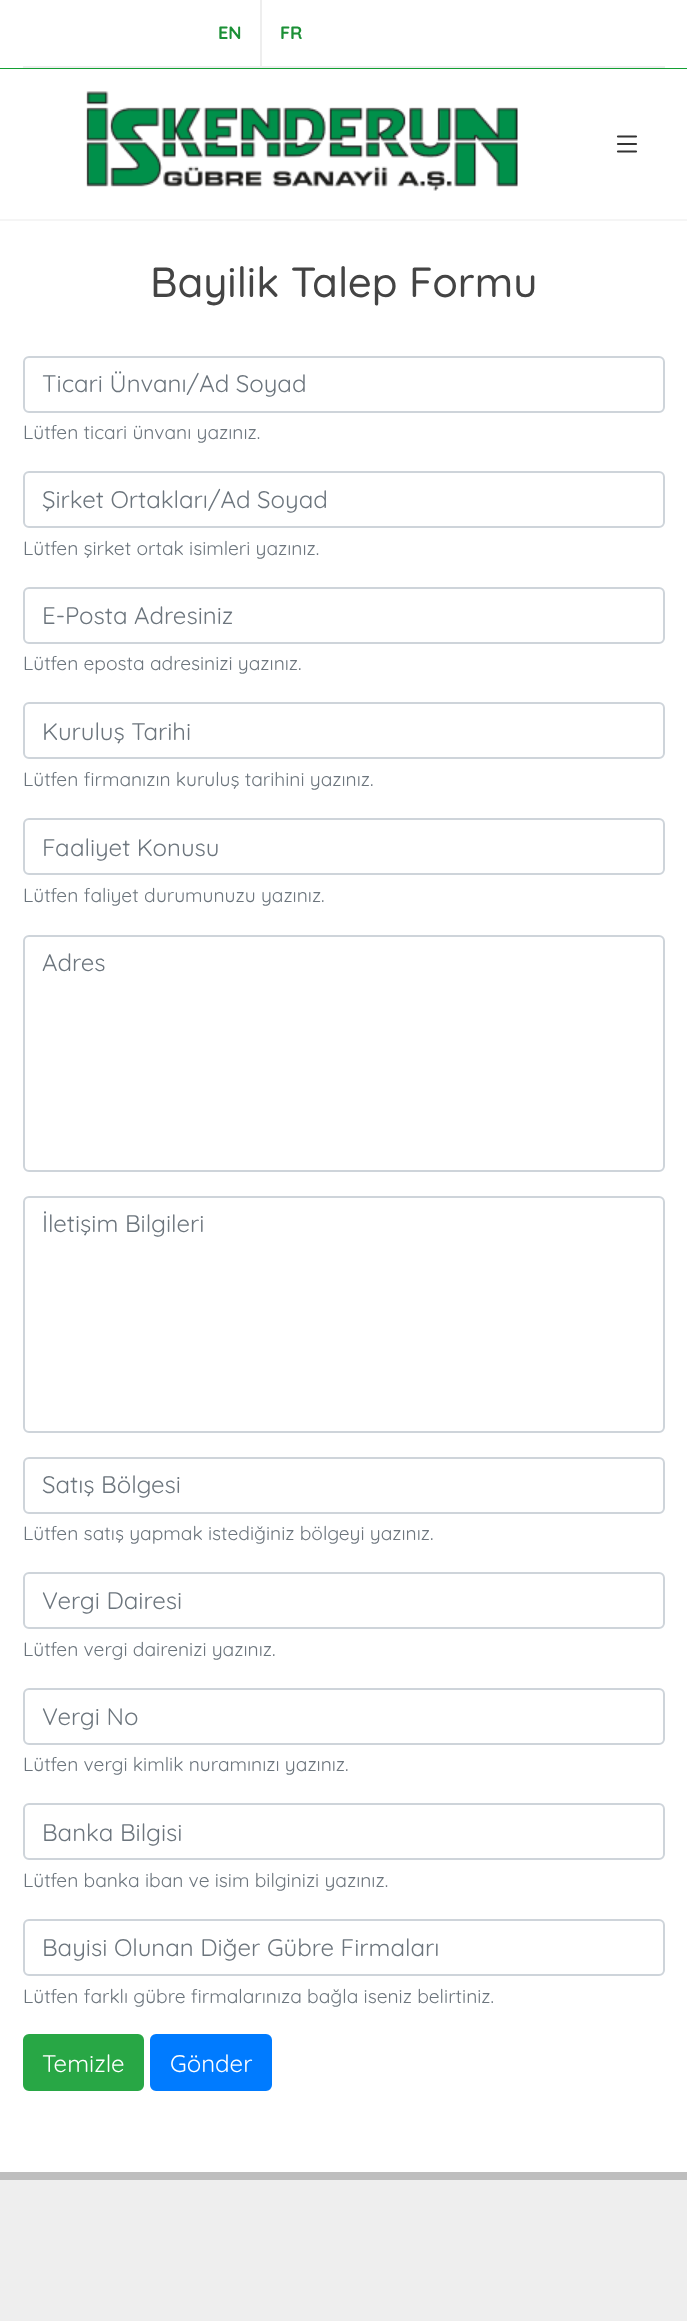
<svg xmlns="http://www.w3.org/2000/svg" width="687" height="2321">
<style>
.a{font:bold 18px Quicksand;fill:#1b9036}
.b{font:500 42px Quicksand;fill:#444}
.c{font:24px Quicksand;fill:#6c757d}
.d{font:19.2px Quicksand;fill:#6c757d}
.e{font:24px Quicksand;fill:#fff}
</style>
<rect width="100%" height="100%" fill="#fff"/>
<path fill="#13a033" d="M0 68h687v1H0z"/>
<path fill="#eee" d="M23 66h642v2H23z"/>
<path fill="#eee" d="M260 0h2v66H260z"/>
<path fill="#f5f5f5" d="M0 219h687v2H0z"/>
<image href="1.png" x="86" y="91" width="432" height="100"/>
<path fill="none" stroke="#333" stroke-width="2.2" stroke-linecap="round" d="M618 136.5h18m-18 7.5h18m0 7.5h-18"/>
<rect fill="none" stroke="#ced4da" stroke-width="2" x="24" y="357" width="640" height="55" rx="5"/>
<rect fill="none" stroke="#ced4da" stroke-width="2" x="24" y="472" width="640" height="55" rx="5"/>
<rect fill="none" stroke="#ced4da" stroke-width="2" x="24" y="588" width="640" height="55" rx="5"/>
<rect fill="none" stroke="#ced4da" stroke-width="2" x="24" y="703" width="640" height="55" rx="5"/>
<rect fill="none" stroke="#ced4da" stroke-width="2" x="24" y="819" width="640" height="55" rx="5"/>
<rect fill="none" stroke="#ced4da" stroke-width="2" x="24" y="936" width="640" height="235" rx="5"/>
<rect fill="none" stroke="#ced4da" stroke-width="2" x="24" y="1197" width="640" height="235" rx="5"/>
<rect fill="none" stroke="#ced4da" stroke-width="2" x="24" y="1458" width="640" height="55" rx="5"/>
<rect fill="none" stroke="#ced4da" stroke-width="2" x="24" y="1573" width="640" height="55" rx="5"/>
<rect fill="none" stroke="#ced4da" stroke-width="2" x="24" y="1689" width="640" height="55" rx="5"/>
<rect fill="none" stroke="#ced4da" stroke-width="2" x="24" y="1804" width="640" height="55" rx="5"/>
<rect fill="none" stroke="#ced4da" stroke-width="2" x="24" y="1920" width="640" height="55" rx="5"/>
<rect fill="#28a745" stroke="#28a745" stroke-width="2" x="24" y="2035" width="119" height="55" rx="5"/>
<rect fill="#007bff" stroke="#007bff" stroke-width="2" x="151" y="2035" width="120" height="55" rx="5"/>
<path fill="#eee" d="M0 2180h687v141H0z"/>
<path fill="#bebebe" d="M0 2172h687v8H0z"/>
<text class="a" x="218" y="39">EN</text>
<text class="a" x="280" y="39">FR</text>
<text class="b" x="150" y="297">Bayilik Talep Formu</text>
<text class="c" x="42" y="392">Ticari Ünvanı/Ad Soyad</text>
<text class="d" x="23" y="439">Lütfen ticari ünvanı yazınız.</text>
<text class="c" x="42" y="508">Şirket Ortakları/Ad Soyad</text>
<text class="d" x="23" y="555">Lütfen şirket ortak isimleri yazınız.</text>
<text class="c" x="42" y="624">E-Posta Adresiniz</text>
<text class="d" x="23" y="670">Lütfen eposta adresinizi yazınız.</text>
<text class="c" x="42" y="740">Kuruluş Tarihi</text>
<text class="d" x="23" y="786">Lütfen firmanızın kuruluş tarihini yazınız.</text>
<text class="c" x="42" y="856">Faaliyet Konusu</text>
<text class="d" x="23" y="902">Lütfen faliyet durumunuzu yazınız.</text>
<text class="c" x="42" y="971">Adres</text>
<text class="c" x="42" y="1232">İletişim Bilgileri</text>
<text class="c" x="42" y="1493">Satış Bölgesi</text>
<text class="d" x="23" y="1540">Lütfen satış yapmak istediğiniz bölgeyi yazınız.</text>
<text class="c" x="42" y="1609">Vergi Dairesi</text>
<text class="d" x="23" y="1656">Lütfen vergi dairenizi yazınız.</text>
<text class="c" x="42" y="1725">Vergi No</text>
<text class="d" x="23" y="1771">Lütfen vergi kimlik nuramınızı yazınız.</text>
<text class="c" x="42" y="1841">Banka Bilgisi</text>
<text class="d" x="23" y="1887">Lütfen banka iban ve isim bilginizi yazınız.</text>
<text class="c" x="42" y="1956">Bayisi Olunan Diğer Gübre Firmaları</text>
<text class="d" x="23" y="2003">Lütfen farklı gübre firmalarınıza bağla iseniz belirtiniz.</text>
<text class="e" x="42" y="2072">Temizle</text>
<text class="e" x="170" y="2072">Gönder</text>
</svg>
